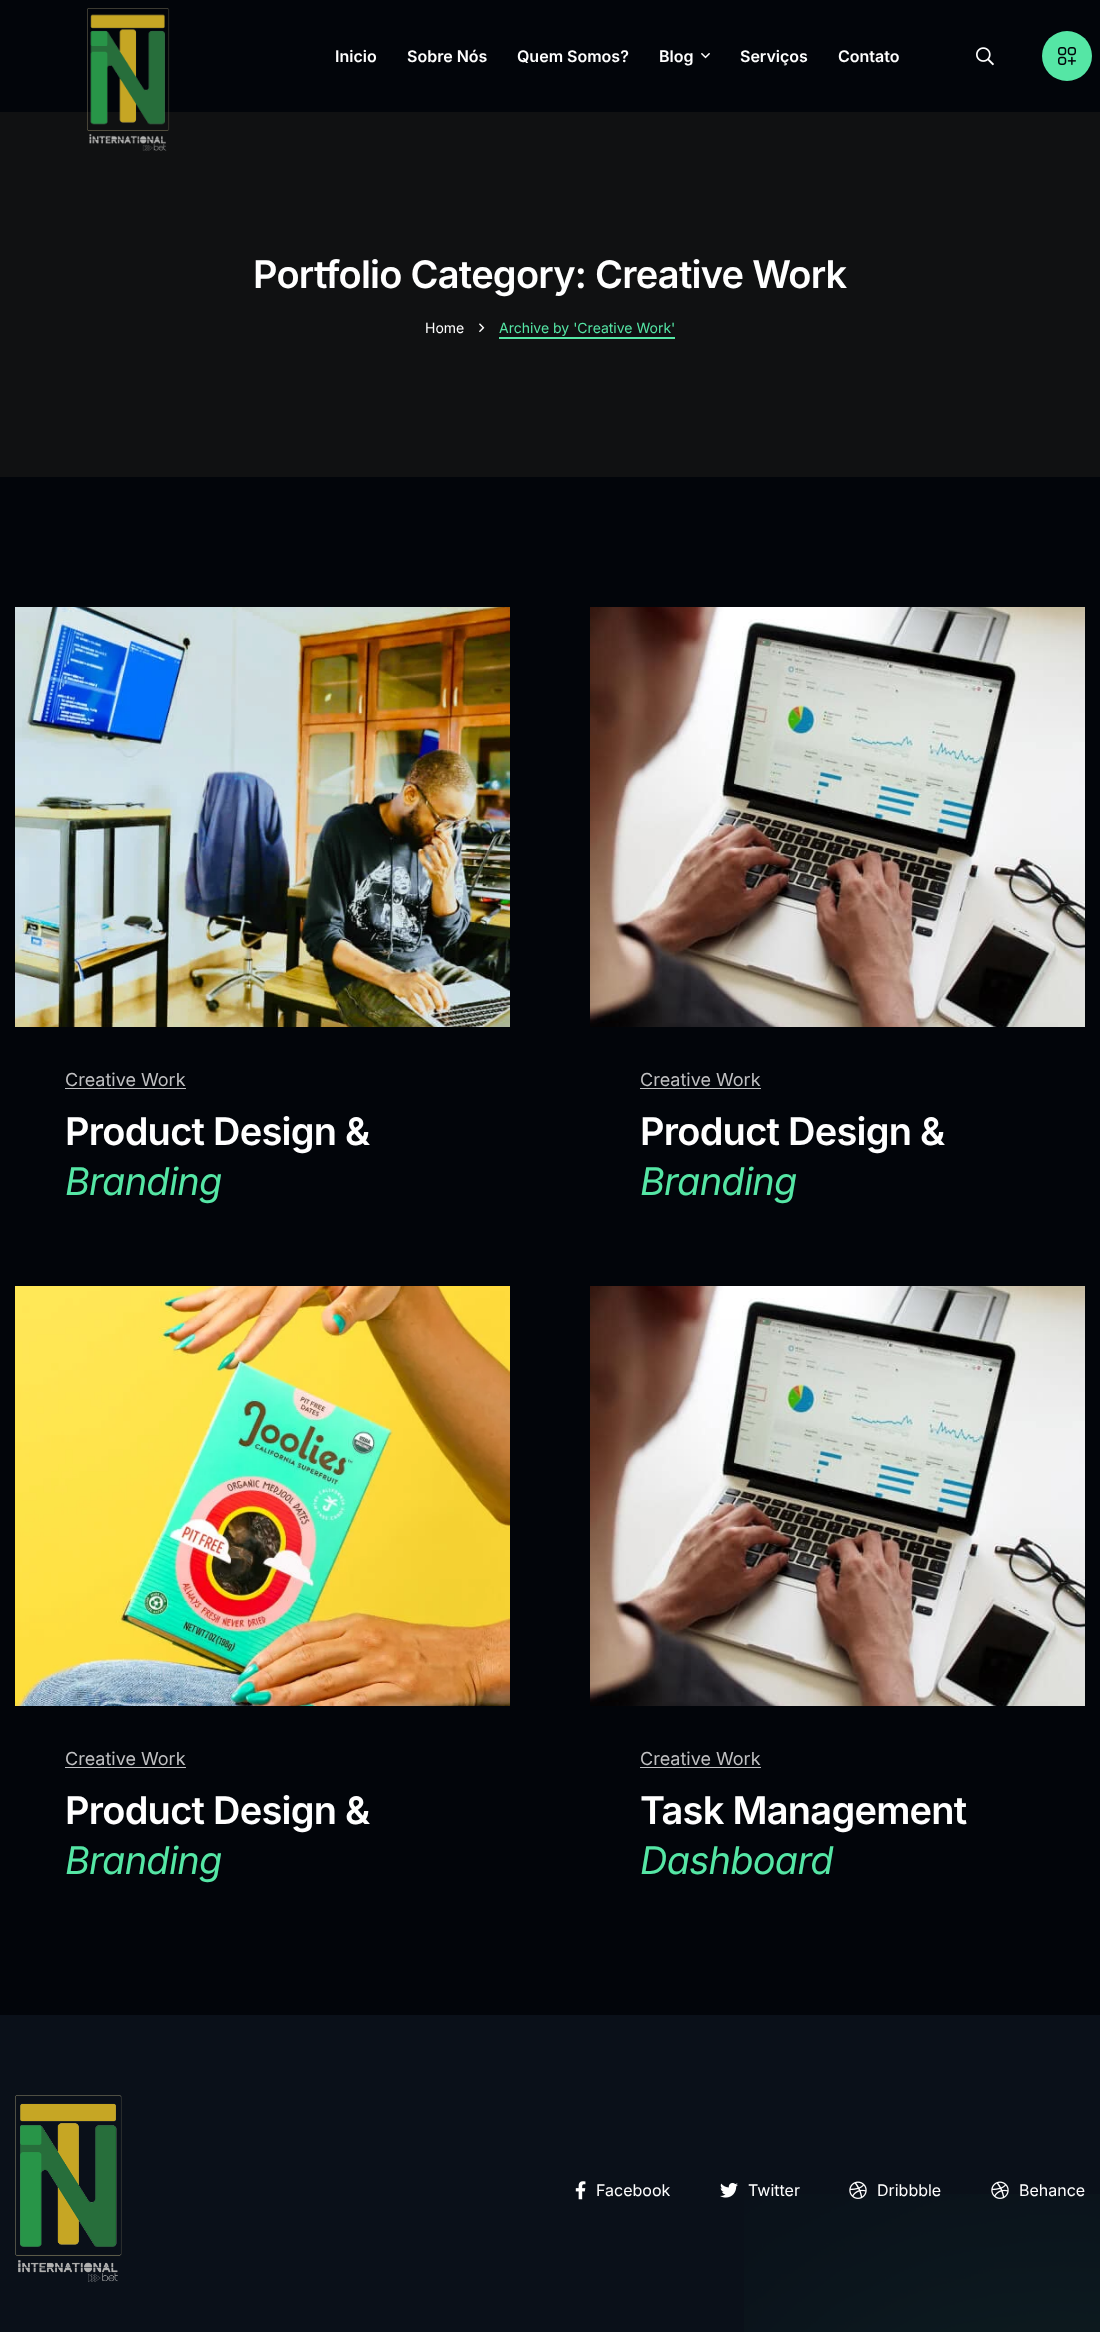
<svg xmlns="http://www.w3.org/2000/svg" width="1100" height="2332">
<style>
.a{font:600 16px Inter;fill:#fff}
.b{font:600 38px Inter;letter-spacing:-0.75px;fill:#fff}
.c{font:14px Inter;fill:#fff}
.d{font:14px Inter;fill:#55e6a5}
.e{font:18px Inter;fill:#c0c0c2}
.f{font:italic 38px Inter;letter-spacing:-0.75px;fill:#55e6a5}
.g{font:16px Inter;fill:#fff}
</style>
<rect width="100%" height="100%" fill="#02050a"/>
<path fill="#101112" d="M0 112h1100v365H0z"/>
<image href="1.png" x="87" y="8" width="83" height="143"/>
<image href="2.png" x="701" y="53" width="9" height="6"/>
<image href="3.png" x="976" y="47" width="18" height="19"/>
<circle fill="#55e6a5" cx="1067" cy="56" r="25"/>
<image href="4.png" x="1058" y="47" width="18" height="18"/>
<image href="5.png" x="479" y="323" width="6" height="10"/>
<path fill="#55e6a5" d="M499 337h176v2H499z"/>
<image href="6.png" x="15" y="607" width="495" height="420"/>
<path fill="#c0c0c2" d="M65 1088h121v1H65z"/>
<image href="7.png" x="590" y="607" width="495" height="420"/>
<path fill="#c0c0c2" d="M640 1088h121v1H640z"/>
<image href="8.png" x="15" y="1286" width="495" height="420"/>
<path fill="#c0c0c2" d="M65 1767h121v1H65z"/>
<image href="9.png" x="590" y="1286" width="495" height="420"/>
<path fill="#c0c0c2" d="M640 1767h121v1H640z"/>
<path fill="#0a1019" d="M0 2015h1100v317H0z"/>
<image href="10.png" x="15" y="2095" width="107" height="187"/>
<image href="11.png" x="575" y="2181" width="11" height="19"/>
<image href="12.png" x="720" y="2182" width="18" height="16"/>
<image href="15.png" x="744" y="2194" width="356" height="138"/>
<image href="13.png" x="849" y="2181" width="18" height="18"/>
<image href="14.png" x="991" y="2181" width="18" height="18"/>
<text class="a" x="335" y="62">Inicio</text>
<text class="a" x="407" y="62">Sobre Nós</text>
<text class="a" x="517" y="62">Quem Somos?</text>
<text class="a" x="659" y="62">Blog</text>
<text class="a" x="740" y="62">Serviços</text>
<text class="a" x="838" y="62">Contato</text>
<text class="b" x="253" y="288">Portfolio Category: Creative Work</text>
<text class="c" x="425" y="333">Home</text>
<text class="d" x="499" y="333">Archive by 'Creative Work'</text>
<text class="e" x="65" y="1086">Creative Work</text>
<text class="b" x="65" y="1145">Product Design &amp;</text>
<text class="f" x="65" y="1195">Branding</text>
<text class="e" x="640" y="1086">Creative Work</text>
<text class="b" x="640" y="1145">Product Design &amp;</text>
<text class="f" x="640" y="1195">Branding</text>
<text class="e" x="65" y="1765">Creative Work</text>
<text class="b" x="65" y="1824">Product Design &amp;</text>
<text class="f" x="65" y="1874">Branding</text>
<text class="e" x="640" y="1765">Creative Work</text>
<text class="b" x="640" y="1824">Task Management</text>
<text class="f" x="640" y="1874">Dashboard</text>
<text class="g" x="596" y="2196">Facebook</text>
<text class="g" x="748" y="2196">Twitter</text>
<text class="g" x="877" y="2196">Dribbble</text>
<text class="g" x="1019" y="2196">Behance</text>
</svg>
